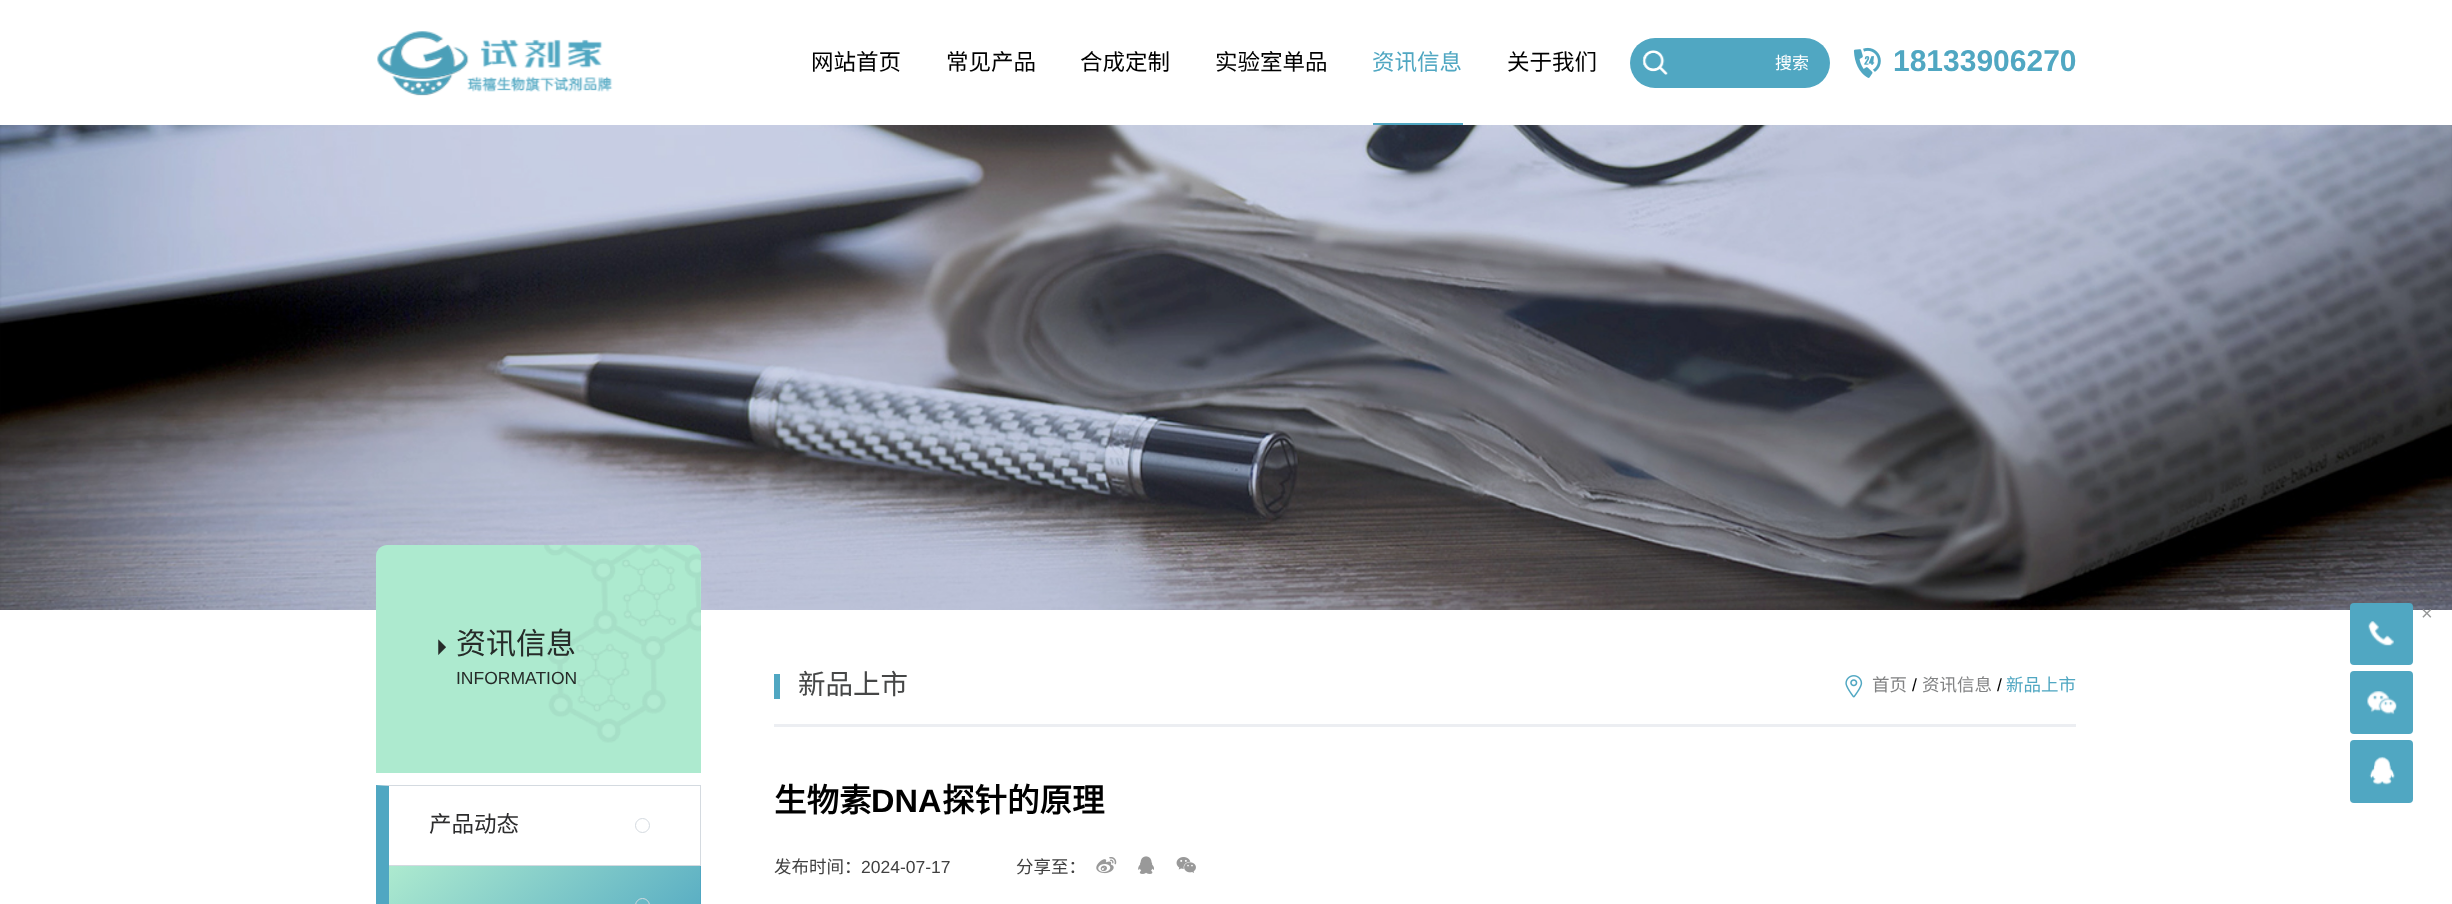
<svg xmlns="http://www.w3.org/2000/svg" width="2452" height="904">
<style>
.a{font:22.5px Noto Sans CJK SC;fill:#000}
.b{font:22.5px Noto Sans CJK SC;fill:#50a7c2}
.c{font:17px Noto Sans CJK SC;fill:#fff}
.d{font:bold 30px Liberation Sans;fill:#50a7c2}
.e{font:20px Liberation Sans;fill:#969797}
.f{font:30px Noto Sans CJK SC;fill:#262b29}
.g{font:17.5px Liberation Sans;fill:#262b29}
.h{font:22.5px Noto Sans CJK SC;fill:#2c2c2d}
.i{font:27.5px Noto Sans CJK SC;fill:#464747}
.j{font:17.5px Noto Sans CJK SC;fill:#818283}
.k{font:17.5px Liberation Sans;fill:#000}
.l{font:17.5px Noto Sans CJK SC;fill:#50a7c2}
.m{font:bold 32.5px Noto Sans CJK SC;fill:#000}
.n{font:bold 32.5px Liberation Sans;fill:#000}
.o{font:17.5px Noto Sans CJK SC;fill:#404040}
.p{font:17.5px Liberation Sans;fill:#404040}
</style>
<defs>
<linearGradient id="g1" gradientUnits="userSpaceOnUse" x1="628" y1="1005" x2="461" y2="806"><stop offset="0" stop-color="#50a7c2"/><stop offset="1" stop-color="#adeacf"/></linearGradient>
</defs>
<rect width="100%" height="100%" fill="#fff"/>
<image href="1.png" x="377" y="31" width="236" height="65"/>
<path fill="#50a7c2" d="M1373 123h90v2H1373z"/>
<rect fill="#50a7c2" x="1630" y="38" width="200" height="50" rx="25"/>
<image href="2.png" x="1642" y="50" width="26" height="25"/>
<image href="3.png" x="1853" y="47" width="28" height="31"/>
<image href="4.png" x="0" y="125" width="2452" height="485"/>
<rect fill="#50a7c2" x="2350" y="603" width="63" height="62" rx="4"/>
<image href="5.png" x="2368" y="621" width="26" height="25"/>
<rect fill="#50a7c2" x="2350" y="671" width="63" height="63" rx="4"/>
<image href="6.png" x="2367" y="691" width="30" height="24"/>
<rect fill="#50a7c2" x="2350" y="740" width="63" height="63" rx="4"/>
<image href="7.png" x="2369" y="756" width="26" height="29"/>
<path fill="#adeacf" d="M387 545h303c6 0 11 5 11 11v217h-325v-217c0-6 5-11 11-11z"/>
<image href="8.png" x="544" y="545" width="157" height="198"/>
<image href="9.png" x="438" y="639" width="8" height="16"/>
<path fill="#d4dae0" d="M376 785h325v1h-312z"/>
<path fill="#50a7c2" d="M376 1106v-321l13 1v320z"/>
<path fill="#d4dae0" d="M700 786h1v80H700z"/>
<path fill="#d4dae0" d="M389 865h312v1H389z"/>
<circle fill="none" stroke="#d4dae0" cx="642.5" cy="825.5" r="7"/>
<path fill="#50a7c2" d="M700 866h1v38H700z"/>
<path fill="url(#g1)" d="M389 866h311v38H389z"/>
<circle fill="none" stroke="#d4dae0" cx="642.5" cy="905.5" r="7"/>
<path fill="#eceef2" d="M774 724h1302v3H774z"/>
<path fill="#50a7c2" d="M774 674h6v25H774z"/>
<image href="10.png" x="1845" y="675" width="18" height="23"/>
<image href="11.png" x="1096" y="857" width="21" height="17"/>
<image href="12.png" x="1138" y="856" width="16" height="18"/>
<image href="13.png" x="1176" y="857" width="20" height="16"/>
<text class="a" x="811" y="70">网站首页</text>
<text class="a" x="946" y="70">常见产品</text>
<text class="a" x="1080" y="70">合成定制</text>
<text class="a" x="1215" y="70">实验室单品</text>
<text class="b" x="1372" y="70">资讯信息</text>
<text class="a" x="1507" y="70">关于我们</text>
<text class="c" x="1775" y="69">搜索</text>
<text class="d" x="1893" y="71">18133906270</text>
<text class="e" x="2421" y="620">×</text>
<text class="f" x="456" y="654">资讯信息</text>
<text class="g" x="456" y="684">INFORMATION</text>
<text class="h" x="429" y="832">产品动态</text>
<text class="i" x="798" y="694">新品上市</text>
<text class="j" x="1872" y="691">首页</text>
<text class="k" x="1912" y="691">/</text>
<text class="j" x="1922" y="691">资讯信息</text>
<text class="k" x="1997" y="691">/</text>
<text class="l" x="2006" y="691">新品上市</text>
<text class="m" x="774" y="812">生物素</text>
<text class="n" x="871" y="812">DNA</text>
<text class="m" x="942" y="812">探针的原理</text>
<text class="o" x="774" y="873">发布时间：</text>
<text class="p" x="861" y="873">2024-07-17</text>
<text class="o" x="1016" y="873">分享至：</text>
</svg>
